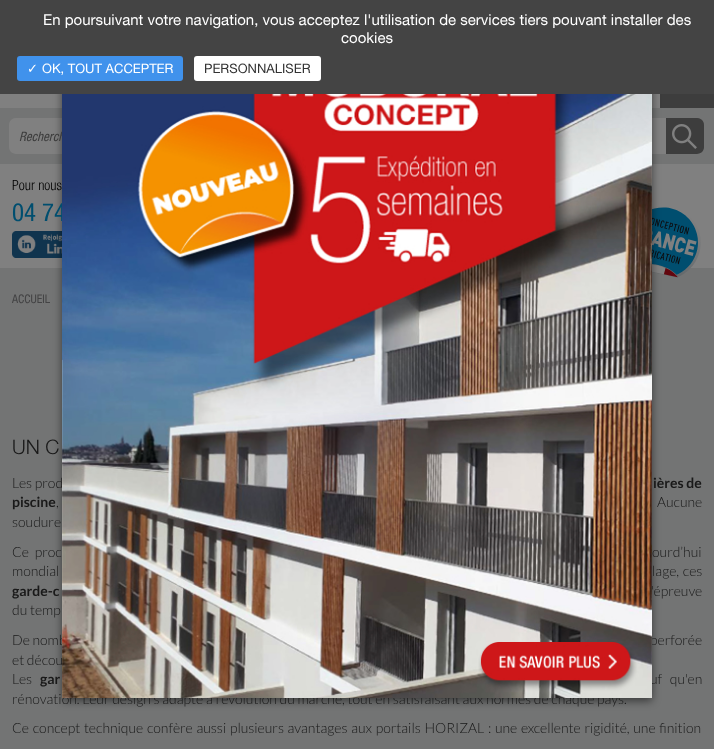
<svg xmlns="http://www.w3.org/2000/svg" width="714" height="749">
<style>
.a{font:15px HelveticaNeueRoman;fill:#fff}
.b{font:13px DejaVu Sans;fill:#fff}
.c{font:13px HelveticaNeueRoman;fill:#fff}
.d{font:13px HelveticaNeueRoman;fill:#333}
.e{font:italic 13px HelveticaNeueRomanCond;fill:#3d3d3d}
.f{font:300 14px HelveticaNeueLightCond;fill:#000}
.g{font:25px HelveticaNeueRomanCond;fill:#004e6f}
.h{font:12px HelveticaNeueRomanCond;fill:#444445}
.i{font:300 20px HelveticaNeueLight;fill:#191919}
.j{font:300 14px Lato;fill:#191919}
.k{font:bold 14px Lato;fill:#191919}
</style>
<rect width="100%" height="100%" fill="#737474"/>
<path fill="#808080" d="M0 94h660v14H0z"/>
<path fill="#3d3d3d" d="M660 94h54v14H660z"/>
<path fill="#3d3d3d" d="M664 118h33c4 0 7 3 7 7v22c0 4-3 7-7 7h-33z"/>
<path fill="#808080" d="M16 118h650v36h-650c-4 0-7-3-7-7v-22c0-4 3-7 7-7z"/>
<path fill="#808080" d="M0 164h714v104H0z"/>
<image href="3.png" x="12" y="231" width="50" height="27"/>
<image href="4.png" x="652" y="207" width="49" height="71"/>
<path fill="#00000080" filter="blur(4.5px)" d="M62 13h590v688H62z"/>
<path fill="#444" d="M0 0h714v94H0z"/>
<rect fill="#4092ec" x="17" y="56" width="166" height="25" rx="3"/>
<rect fill="#fff" x="194" y="56" width="127" height="25" rx="3"/>
<image href="2.png" x="672" y="124" width="25" height="25"/>
<text class="a" x="43" y="25">En poursuivant votre navigation, vous acceptez l'utilisation de services tiers pouvant installer des</text>
<text class="a" x="341" y="43">cookies</text>
<text class="b" x="27" y="73">✓</text>
<text class="c" x="42" y="73">OK, TOUT ACCEPTER</text>
<text class="d" x="204" y="73">PERSONNALISER</text>
<text class="e" x="19" y="141">Recherch</text>
<text class="f" x="12" y="190">Pour nous</text>
<text class="g" x="12" y="221">04 74</text>
<text class="h" x="12" y="303">ACCUEIL</text>
<text class="i" x="12" y="454">UN C</text>
<text class="j" x="12" y="488">Les prod</text>
<text class="k" x="653" y="488">ières de</text>
<text class="k" x="12" y="507">piscine</text>
<text class="j" x="56" y="507" word-spacing="4">,</text>
<text class="j" x="657" y="507" word-spacing="4">Aucune</text>
<text class="j" x="12" y="527">soudure</text>
<text class="j" x="12" y="557" word-spacing="3">Ce proc</text>
<text class="j" x="652" y="557" word-spacing="3">ourd’hui</text>
<text class="j" x="12" y="576" word-spacing="1">mondial</text>
<text class="j" x="652" y="576" word-spacing="1">lage, ces</text>
<text class="k" x="12" y="596">garde-c</text>
<text class="j" x="651" y="596">'épreuve</text>
<text class="j" x="12" y="615">du temp</text>
<text class="j" x="12" y="645">De nomb</text>
<text class="j" x="650" y="645">perforée</text>
<text class="j" x="12" y="665">et décou</text>
<text class="j" x="12" y="684">Les</text>
<text class="k" x="40" y="684" word-spacing="5">gar</text>
<text class="j" x="650" y="684" word-spacing="5">uf qu'en</text>
<text class="j" x="12" y="704">rénovation. Leur design s'adapte à l'évolution du marché, tout en satisfaisant aux normes de chaque pays.</text>
<image href="1.png" x="62" y="94" width="590" height="604"/>
<text class="j" x="12" y="733" word-spacing="1">Ce concept technique confère aussi plusieurs avantages aux portails HORIZAL : une excellente rigidité, une finition</text>
</svg>
